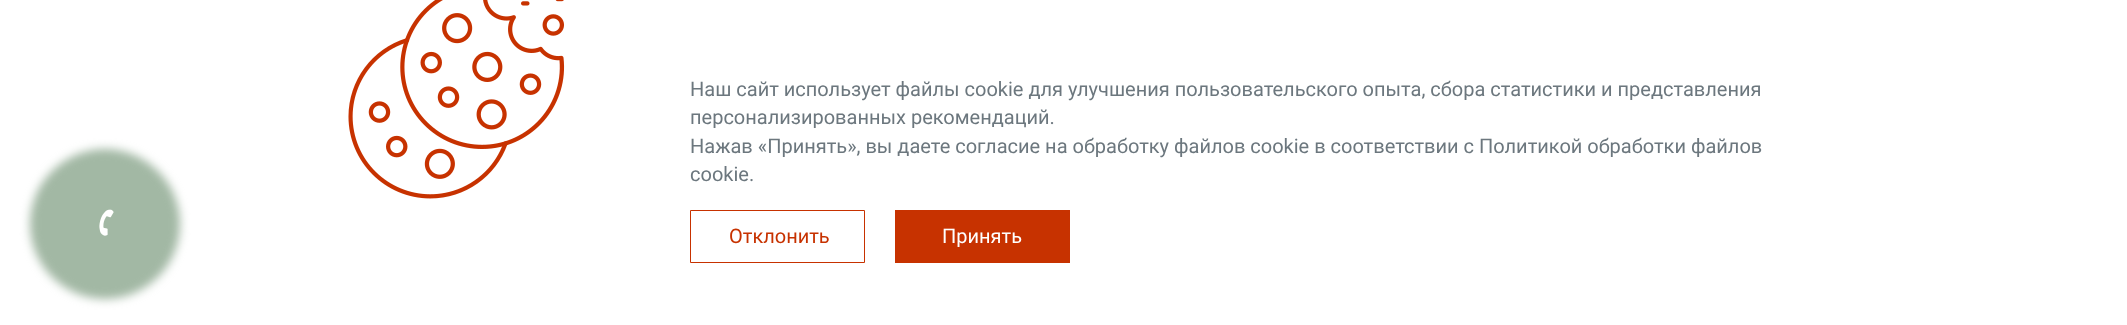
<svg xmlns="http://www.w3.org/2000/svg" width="2127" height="325">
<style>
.a{font:20px Roboto;fill:#6c777e}
.b{font:20px Roboto;fill:#c73200}
.c{font:20px 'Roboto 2';fill:#fff}
</style>
<rect width="100%" height="100%" fill="#fff"/>
<rect fill="#a2b8a4" filter="blur(5px)" x="30" y="149" width="150" height="150" rx="75"/>
<image href="1.png" x="99" y="209" width="15" height="27"/>
<image href="2.png" x="348" y="0" width="217" height="199"/>
<path fill="none" stroke="#c73200" d="M690.5 210.5h174v52H690.5z"/>
<path fill="#c73200" d="M895 210h175v53H895z"/>
<text class="a" x="690" y="96">Наш сайт использует файлы cookie для улучшения пользовательского опыта, сбора статистики и представления</text>
<text class="a" x="690" y="124">персонализированных рекомендаций.</text>
<text class="a" x="690" y="153">Нажав «Принять», вы даете согласие на обработку файлов cookie в соответствии с Политикой обработки файлов</text>
<text class="a" x="690" y="181">cookie.</text>
<text class="b" x="729" y="243">Отклонить</text>
<text class="c" x="942" y="243">Принять</text>
</svg>
